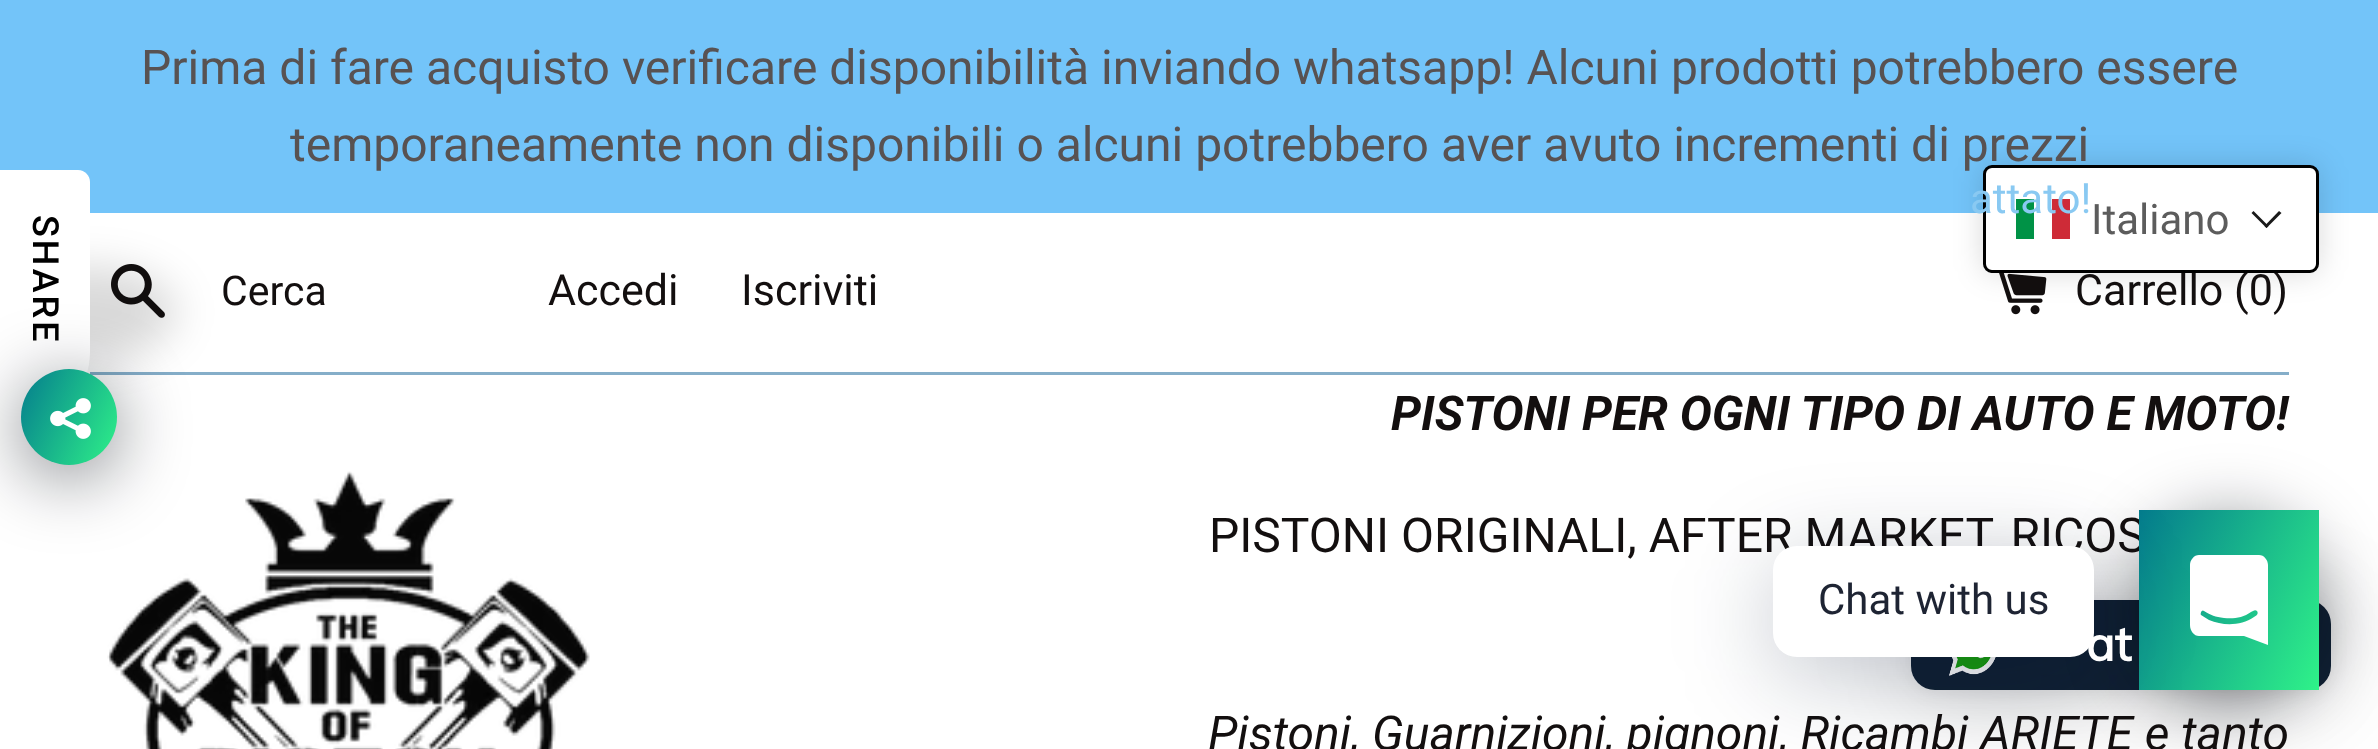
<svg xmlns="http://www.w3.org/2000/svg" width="2378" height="749">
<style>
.a{font:48px Roboto;fill:#585252}
.b{font:41px Roboto;fill:#130f0f}
.c{font:43px Roboto;fill:#130f0f}
.d{font:italic bold 48px Roboto;fill:#130f0f}
.e{font:48px Roboto;fill:#130f0f}
.f{font:italic 48px Roboto;fill:#130f0f}
.g{font:500 36px Roboto;letter-spacing:3px;fill:#000}
.h{font:42px Roboto;fill:#1e2433}
.i{font:42px Roboto;fill:#89c9f2}
.j{font:42px Roboto;fill:#5c5c5c}
.k{font:bold 48px Muli;fill:#fff}
</style>
<defs>
<linearGradient id="g1" gradientUnits="userSpaceOnUse" x1="11" y1="390" x2="127" y2="444"><stop offset="0" stop-color="#047c8d"/><stop offset="1" stop-color="#2ff289"/></linearGradient>
<linearGradient id="g2" gradientUnits="userSpaceOnUse" x1="2121" y1="549" x2="2337" y2="651"><stop offset="0" stop-color="#047c8d"/><stop offset="1" stop-color="#2ff289"/></linearGradient>
</defs>
<rect width="100%" height="100%" fill="#fff"/>
<path fill="#73c4f9" d="M0 0h2378v213H0z"/>
<image href="1.png" x="111" y="264" width="54" height="54"/>
<image href="2.png" x="1990" y="272" width="57" height="43"/>
<path fill="#85aec9" d="M90 372h2199v3H90z"/>
<image href="3.png" x="107" y="471" width="483" height="278"/>
<rect fill="#00000026" filter="blur(21px)" x="-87" y="267" width="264" height="90" rx="84"/>
<path fill="#fff" d="M0 435v-265h78c7 0 12 6 12 12v169c0 46-38 84-84 84z"/>
<rect fill="#02061080" filter="blur(36px)" x="21" y="381" width="96" height="96" rx="48"/>
<circle fill="url(#g1)" cx="69" cy="417" r="48"/>
<image href="4.png" x="50" y="398" width="41" height="41"/>
<rect fill="#00000029" filter="blur(48px)" x="1911" y="606" width="420" height="90" rx="24"/>
<rect fill="#0000000f" filter="blur(9px)" x="1911" y="603" width="420" height="90" rx="24"/>
<rect fill="#102033" x="1911" y="600" width="420" height="90" rx="24"/>
<rect fill="#02061080" filter="blur(36px)" x="2139" y="522" width="180" height="180" rx="90"/>
<rect fill="#00000026" filter="blur(15px)" x="1983" y="165" width="336" height="108" rx="9"/>
<image href="5.png" x="1949" y="657" width="47" height="19"/>
<text class="a" x="141" y="84">Prima di fare acquisto verificare disponibilità inviando whatsapp! Alcuni prodotti potrebbero essere</text>
<text class="a" x="290" y="161">temporaneamente non disponibili o alcuni potrebbero aver avuto incrementi di prezzi</text>
<text class="b" x="221" y="305">Cerca</text>
<text class="c" x="548" y="305">Accedi</text>
<text class="c" x="741" y="305">Iscriviti</text>
<text class="c" x="2075" y="305">Carrello (0)</text>
<text class="d" x="1391" y="430">PISTONI PER OGNI TIPO DI AUTO E MOTO!</text>
<text class="e" x="1209" y="552">PISTONI ORIGINALI, AFTER MARKET, RICOS</text>
<text class="f" x="1208" y="750">Pistoni, Guarnizioni, pignoni, Ricambi ARIETE e tanto</text>
<text class="g" x="33" y="215" transform="rotate(90 33 215)">SHARE</text>
<path fill="url(#g2)" d="M2139 510h180v180H2139z"/>
<rect fill="#00122e3d" filter="blur(48px)" x="1773" y="564" width="321" height="111" rx="24"/>
<rect fill="#fff" x="1773" y="546" width="321" height="111" rx="24"/>
<text class="h" x="1818" y="614">Chat with us</text>
<path fill="#fff" d="M2268 645l-24-9h-45c-5 0-9-5-9-11v-60c0-5 4-10 9-10h60c5 0 9 5 9 10zm-11-34c-2-2-4 0-6 1c-8 6-18 7-27 6c-9-1-13-3-20-7c-2-2-4 2-3 4l8 5c14 6 32 6 45-3c2-1 5-3 3-6z"/>
<rect fill="#fff" stroke="#000" stroke-width="3" x="1984.5" y="166.5" width="333" height="105" rx="7.5"/>
<path fill="#009246" d="M2016 199h18v40H2016z"/>
<path fill="#ce2b37" d="M2052 199h18v40H2052z"/>
<text class="i" x="1970" y="213">attato!</text>
<text class="j" x="2091" y="234">Italiano</text>
<path fill="#1a1a1a" d="M2279 211l2.5 2l-15 15l-2-2z"/>
<path fill="#1a1a1a" d="M2253.5 211l15 15l-2 2l-15-15z"/>
<text class="k" x="2086" y="661">at</text>
</svg>
